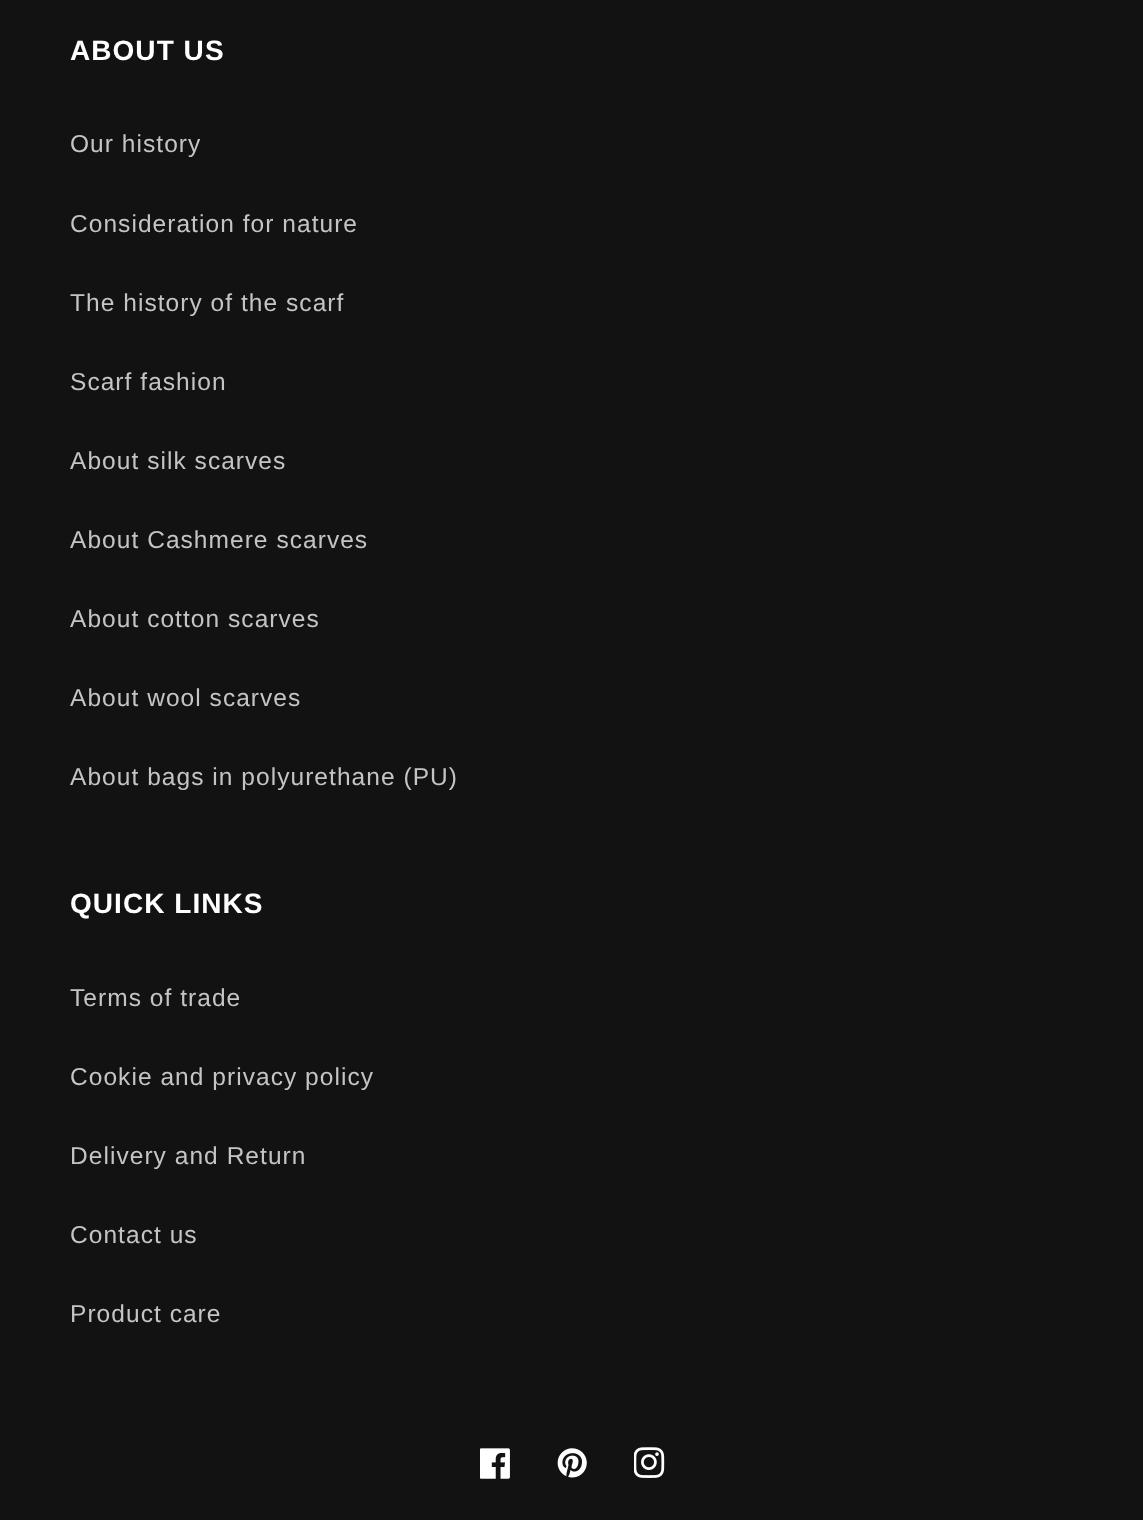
<svg xmlns="http://www.w3.org/2000/svg" width="1143" height="1520">
<style>
.a{font:bold 28px Liberation Sans;letter-spacing:1.05px;fill:#fff}
.b{font:24.5px Liberation Sans;letter-spacing:1.05px;fill:#c4c4c4}
</style>
<rect width="100%" height="100%" fill="#121212"/>
<image href="1.png" x="480" y="1448" width="30" height="31"/>
<image href="2.png" x="557" y="1448" width="30" height="30"/>
<image href="3.png" x="634" y="1447" width="31" height="31"/>
<text class="a" x="70" y="60">ABOUT US</text>
<text class="b" x="70" y="152">Our history</text>
<text class="b" x="70" y="232">Consideration for nature</text>
<text class="b" x="70" y="311">The history of the scarf</text>
<text class="b" x="70" y="390">Scarf fashion</text>
<text class="b" x="70" y="469">About silk scarves</text>
<text class="b" x="70" y="548">About Cashmere scarves</text>
<text class="b" x="70" y="627">About cotton scarves</text>
<text class="b" x="70" y="706">About wool scarves</text>
<text class="b" x="70" y="785">About bags in polyurethane (PU)</text>
<text class="a" x="70" y="913">QUICK LINKS</text>
<text class="b" x="70" y="1006">Terms of trade</text>
<text class="b" x="70" y="1085">Cookie and privacy policy</text>
<text class="b" x="70" y="1164">Delivery and Return</text>
<text class="b" x="70" y="1243">Contact us</text>
<text class="b" x="70" y="1322">Product care</text>
</svg>
